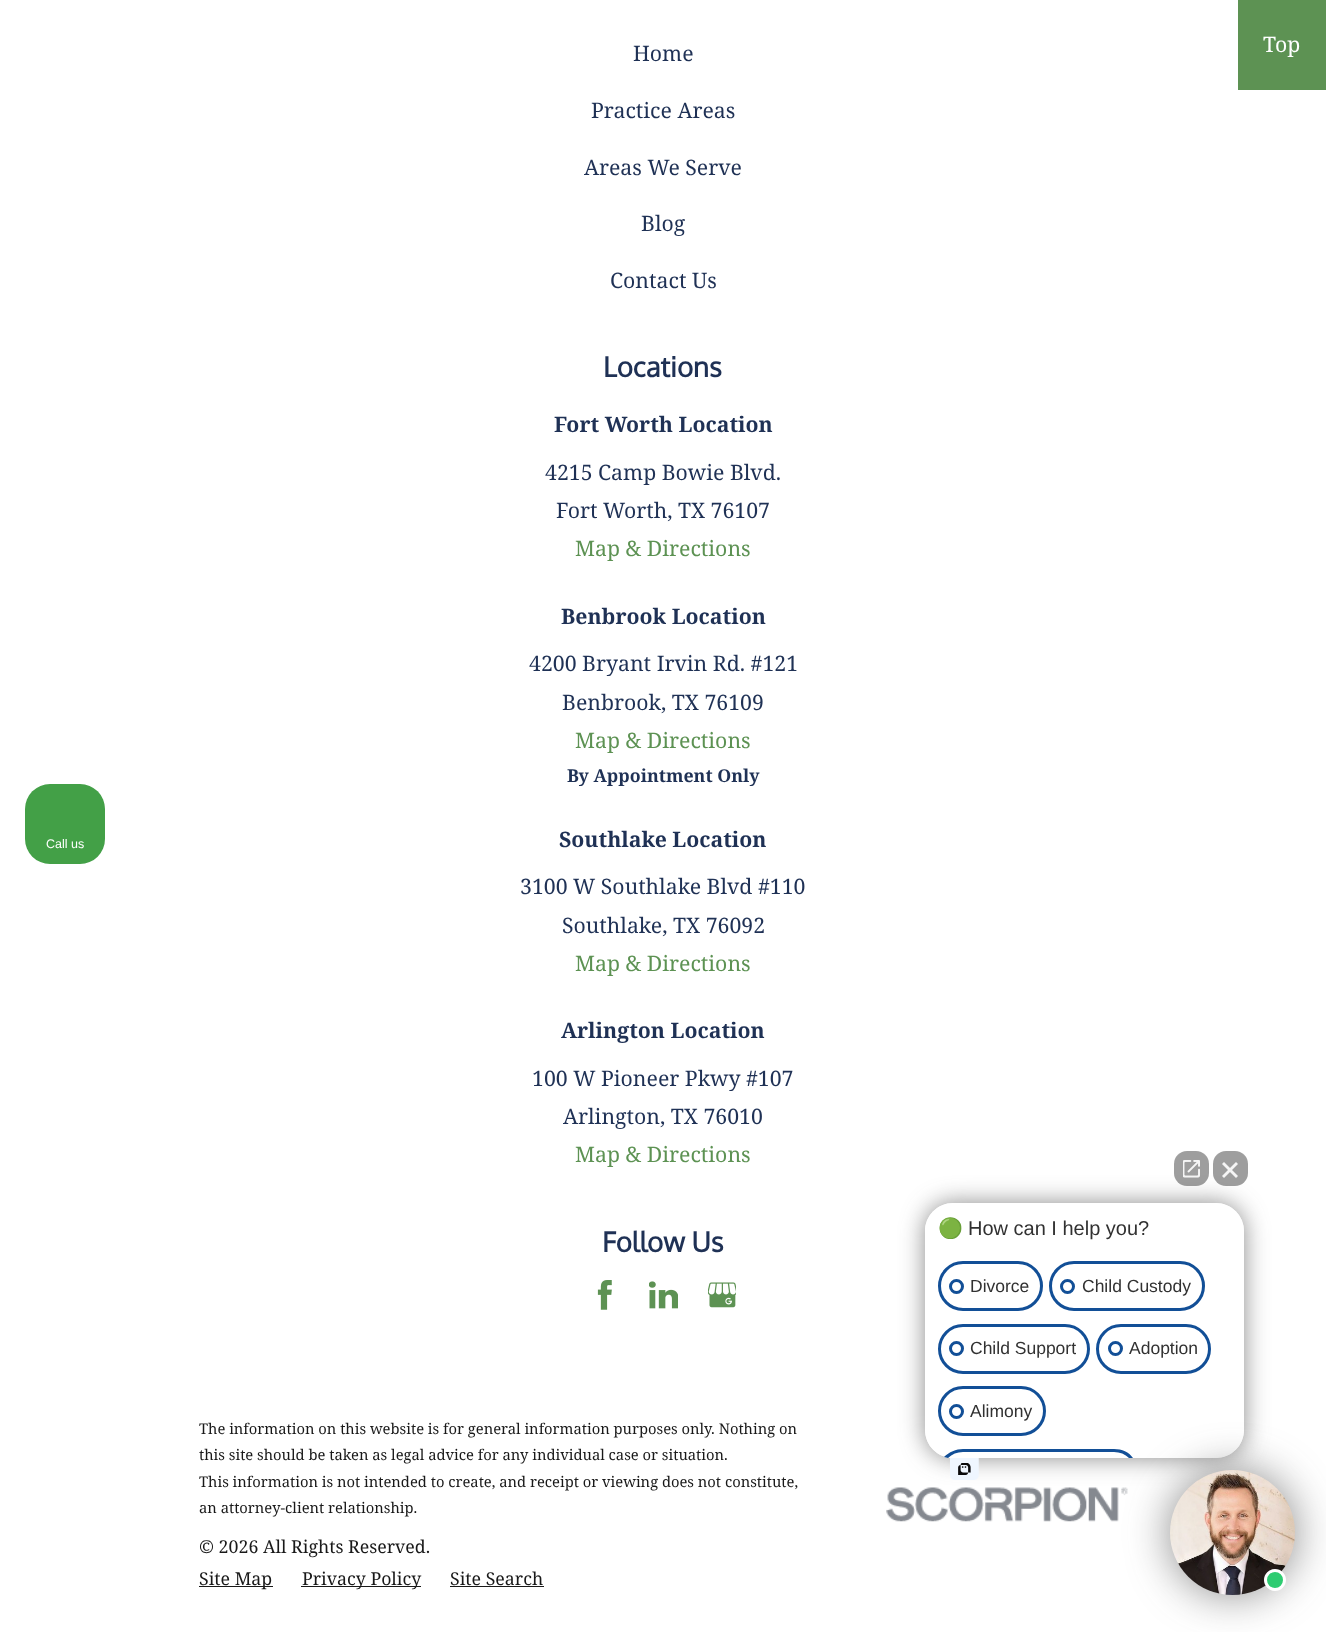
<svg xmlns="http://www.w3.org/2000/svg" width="1326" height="1632">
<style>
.a{font:12.5px Liberation Sans;fill:#fff}
.b{font:21.25px Noto Serif;fill:#1f3155}
.c{font:bold 27.5px Oxygen;fill:#1f3155}
.d{font:bold 21.25px Noto Serif;fill:#1f3155}
.e{font:21.25px Noto Serif;fill:#5d9253}
.f{font:bold 17.75px Noto Serif;fill:#1f3155}
.g{font:14.75px Noto Serif;fill:#191919}
.h{font:17.75px Noto Serif;fill:#191919}
.i{font:21.25px Noto Serif;fill:#fff}
.j{font:20px Noto Color Emoji;fill:#313131}
.k{font:20px Liberation Sans;fill:#313131}
.l{font:17.5px Liberation Sans;fill:#313131}
</style>
<defs>
<clipPath id="clip1"><path d="M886 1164h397v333h-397zm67 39h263c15.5 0 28 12.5 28 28v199c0 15.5-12.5 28-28 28h-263c-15.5 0-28-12.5-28-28v-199c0-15.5 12.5-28 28-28z" clip-rule="evenodd"/></clipPath>
<clipPath id="clip2"><rect x="925" y="1203" width="319" height="255" rx="25"/></clipPath>
</defs>
<rect width="100%" height="100%" fill="#fff"/>
<rect fill="#43a047" x="25" y="784" width="80" height="80" rx="25"/>
<image href="1.png" x="597" y="1280" width="15" height="30"/>
<image href="2.png" x="649" y="1281" width="29" height="28"/>
<image href="3.png" x="708" y="1282" width="28" height="26"/>
<path fill="#191919" d="M199 1586h74v1H199z"/>
<path fill="#191919" d="M301 1586h120v1H301z"/>
<path fill="#191919" d="M450 1586h94v1H450z"/>
<image href="4.png" x="886" y="1487" width="242" height="35"/>
<path fill="#5d9253" d="M1238 0h88v90H1238z"/>
<g clip-path="url(#clip1)">
<rect fill="#3c3c3c99" filter="blur(12.5px)" x="925" y="1203" width="319" height="255" rx="28"/>
</g>
<rect fill="#ffffffd9" x="925" y="1203" width="319" height="255" rx="28"/>
<rect fill="#27272773" x="1174" y="1151" width="35" height="35" rx="13"/>
<image href="5.png" x="1183" y="1160" width="17" height="18"/>
<rect fill="#27272773" x="1213" y="1151" width="35" height="35" rx="13"/>
<path fill="#f5f5f5" d="M1222 1164l2-2l14 14l-2 2z"/>
<path fill="#f5f5f5" d="M1236 1162l2 2l-14 14l-2-2z"/>
<rect fill="none" stroke="#124f97" stroke-width="3" x="939.5" y="1262.5" width="102" height="47" rx="23.5"/>
<circle fill="none" stroke="#124f97" stroke-width="3" cx="956.5" cy="1286.5" r="6"/>
<rect fill="none" stroke="#124f97" stroke-width="3" x="1050.5" y="1262.5" width="153" height="47" rx="23.5"/>
<circle fill="none" stroke="#124f97" stroke-width="3" cx="1067.5" cy="1286.5" r="6"/>
<rect fill="none" stroke="#124f97" stroke-width="3" x="939.5" y="1325.5" width="149" height="47" rx="23.5"/>
<circle fill="none" stroke="#124f97" stroke-width="3" cx="956.5" cy="1348.5" r="6"/>
<rect fill="none" stroke="#124f97" stroke-width="3" x="1097.5" y="1325.5" width="112" height="47" rx="23.5"/>
<circle fill="none" stroke="#124f97" stroke-width="3" cx="1115.5" cy="1348.5" r="6"/>
<rect fill="none" stroke="#124f97" stroke-width="3" x="939.5" y="1387.5" width="105" height="47" rx="23.5"/>
<circle fill="none" stroke="#124f97" stroke-width="3" cx="956.5" cy="1411.5" r="6"/>
<g clip-path="url(#clip2)">
<path fill="#ffffffd9" d="M963 1449h151c14 0 25 11 25 25v-16h-201v16c0-14 11-25 25-25z"/>
</g>
<path fill="#124f97" d="M963 1449c-7 0-14 3-19 8l4 1c4-4 9-6 15-6h151c6 0 11 2 15 6h4c-4-6-11-9-19-9z"/>
<image href="6.png" x="950" y="1458" width="29" height="22"/>
<rect fill="#3c3c3c99" filter="blur(22px)" x="1170" y="1470" width="125" height="125" rx="62.5"/>
<image href="7.png" x="1170" y="1470" width="125" height="125"/>
<circle fill="#2ecc71" stroke="#fff" stroke-width="3" cx="1275" cy="1580" r="9.5"/>
<text class="a" x="46" y="848">Call us</text>
<text class="b" x="633" y="61">Home</text>
<text class="b" x="591" y="118">Practice Areas</text>
<text class="b" x="584" y="175">Areas We Serve</text>
<text class="b" x="641" y="231">Blog</text>
<text class="b" x="610" y="288">Contact Us</text>
<text class="c" x="603" y="377">Locations</text>
<text class="d" x="554" y="432">Fort Worth Location</text>
<text class="b" x="545" y="480">4215 Camp Bowie Blvd.</text>
<text class="b" x="556" y="518">Fort Worth, TX 76107</text>
<text class="e" x="575" y="556">Map &amp; Directions</text>
<text class="d" x="561" y="624">Benbrook Location</text>
<text class="b" x="529" y="671">4200 Bryant Irvin Rd. #121</text>
<text class="b" x="562" y="710">Benbrook, TX 76109</text>
<text class="e" x="575" y="748">Map &amp; Directions</text>
<text class="f" x="567" y="782">By Appointment Only</text>
<text class="d" x="559" y="847">Southlake Location</text>
<text class="b" x="520" y="894">3100 W Southlake Blvd #110</text>
<text class="b" x="562" y="933">Southlake, TX 76092</text>
<text class="e" x="575" y="971">Map &amp; Directions</text>
<text class="d" x="561" y="1038">Arlington Location</text>
<text class="b" x="532" y="1086">100 W Pioneer Pkwy #107</text>
<text class="b" x="563" y="1124">Arlington, TX 76010</text>
<text class="e" x="575" y="1162">Map &amp; Directions</text>
<text class="c" x="602" y="1252">Follow Us</text>
<text class="g" x="199" y="1434">The information on this website is for general information purposes only. Nothing on</text>
<text class="g" x="199" y="1460">this site should be taken as legal advice for any individual case or situation.</text>
<text class="g" x="199" y="1487">This information is not intended to create, and receipt or viewing does not constitute,</text>
<text class="g" x="199" y="1513">an attorney-client relationship.</text>
<text class="h" x="199" y="1553">© 2026 All Rights Reserved.</text>
<text class="h" x="199" y="1585">Site Map</text>
<text class="h" x="302" y="1585">Privacy Policy</text>
<text class="h" x="450" y="1585">Site Search</text>
<text class="i" x="1263" y="52">Top</text>
<text class="j" x="938" y="1235">🟢</text>
<text class="k" x="968" y="1235">How can I help you?</text>
<text class="l" x="970" y="1292">Divorce</text>
<text class="l" x="1082" y="1292">Child Custody</text>
<text class="l" x="970" y="1354">Child Support</text>
<text class="l" x="1129" y="1354">Adoption</text>
<text class="l" x="970" y="1417">Alimony</text>
</svg>
